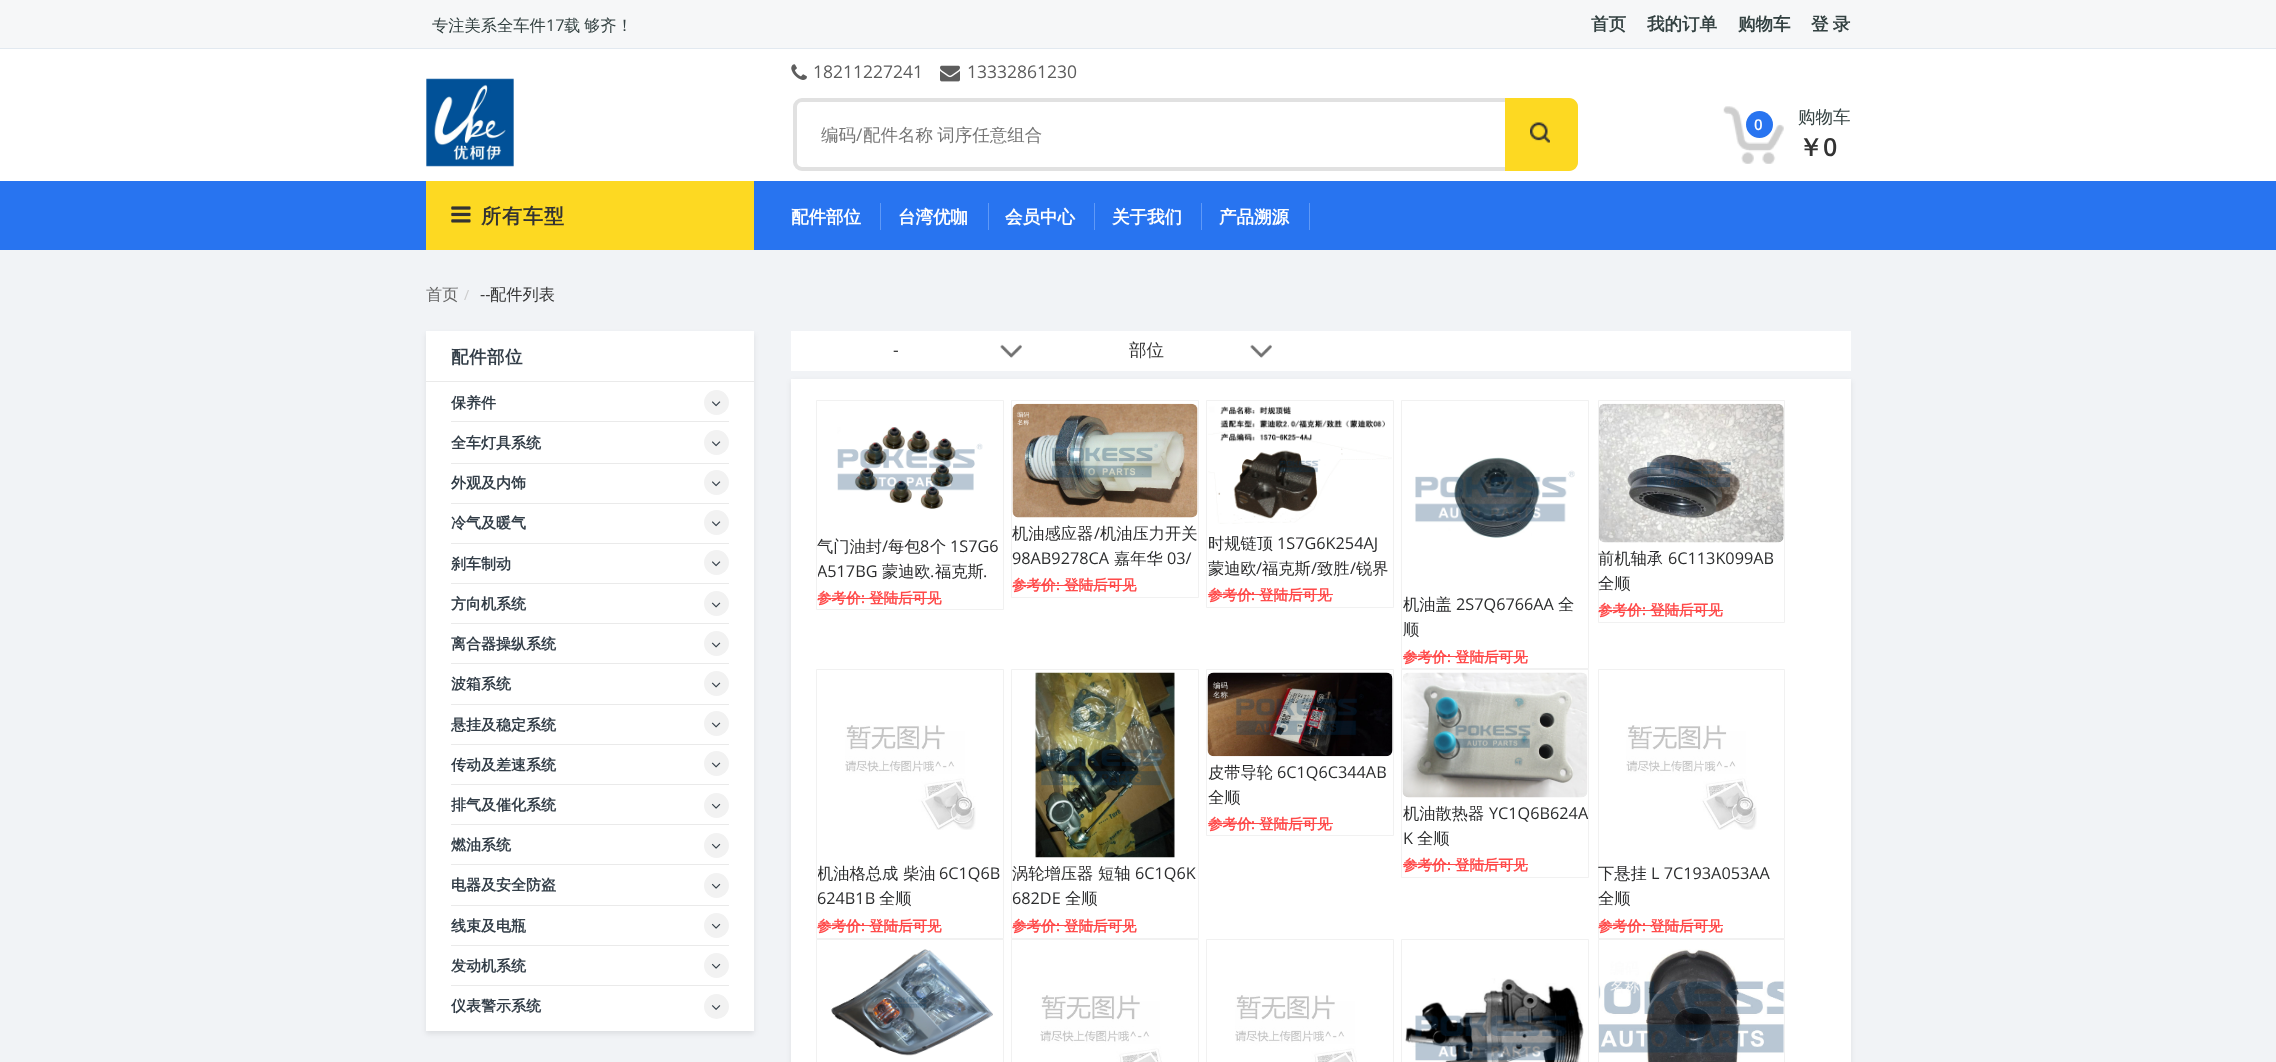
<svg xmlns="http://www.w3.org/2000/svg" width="2276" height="1062">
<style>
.a{font:500 16.25px WenQuanYi Zen Hei;fill:#334141}
.b{font:16.25px Open Sans;fill:#334141}
.c{font:bold 17.5px WenQuanYi Zen Hei;fill:#334141}
.d{font:17.5px Open Sans;fill:#5d5d5d}
.e{font:500 17.5px WenQuanYi Zen Hei;fill:#757575}
.f{font:17.5px Open Sans;fill:#757575}
.g{font:500 17.5px WenQuanYi Zen Hei;fill:#334141}
.h{font:600 15px Open Sans;fill:#fff}
.i{font:bold 25px WenQuanYi Zen Hei;fill:#333}
.j{font:600 25px Open Sans;fill:#333}
.k{font:bold 20px WenQuanYi Zen Hei;letter-spacing:1px;fill:#333}
.l{font:bold 17.5px WenQuanYi Zen Hei;fill:#fff}
.m{font:500 16.25px WenQuanYi Zen Hei;fill:#666}
.n{font:14px Open Sans;fill:#ccc}
.o{font:16.25px Open Sans;fill:#333}
.p{font:500 16.25px WenQuanYi Zen Hei;fill:#333}
.q{font:bold 17.5px WenQuanYi Zen Hei;letter-spacing:0.5px;fill:#333e48}
.r{font:bold 15px WenQuanYi Zen Hei;fill:#333e48}
.s{font:17.5px Open Sans;fill:#333}
.t{font:500 17.5px WenQuanYi Zen Hei;fill:#333}
.u{font:500 16.25px WenQuanYi Zen Hei;fill:#2c2d2e}
.v{font:16.25px Open Sans;fill:#2c2d2e}
.w{font:bold 14.5px WenQuanYi Zen Hei;fill:#ff4a4a}
.x{font:600 14.5px Open Sans;fill:#ff4a4a}
</style>
<defs>
<clipPath id="clip1"><path d="M818 530h185v50H818z"/></clipPath>
<clipPath id="clip2"><path d="M818 858h185v50H818z"/></clipPath>
</defs>
<rect width="100%" height="100%" fill="#f1f3f6"/>
<path fill="#fff" d="M0 49h2276v132H0z"/>
<path fill="#f6f7f8" d="M0 0h2276v48H0z"/>
<path fill="#e2e9f0" d="M0 48h2276v1H0z"/>
<image href="1.png" x="426" y="78" width="88" height="89"/>
<image href="2.png" x="791" y="64" width="16" height="16"/>
<image href="3.png" x="940" y="65" width="20" height="17"/>
<rect fill="none" stroke="#e1e1e1" stroke-width="4" x="795" y="100" width="781" height="69" rx="7"/>
<path fill="#fdd922" d="M1505 98h64c5 0 9 4 9 9v55c0 5-4 9-9 9h-64z"/>
<image href="4.png" x="1530" y="122" width="20" height="21"/>
<image href="5.png" x="1723" y="106" width="61" height="58"/>
<circle fill="#2874f0" cx="1759.5" cy="124.5" r="13.5"/>
<path fill="#2874f0" d="M0 181h2276v69H0z"/>
<path fill="#fdd922" d="M426 181h328v69H426z"/>
<image href="6.png" x="451" y="206" width="20" height="17"/>
<path fill="#5f99f7" d="M880 203h1v27H880z"/>
<path fill="#5f99f7" d="M988 203h1v27H988z"/>
<path fill="#5f99f7" d="M1094 203h1v27H1094z"/>
<path fill="#5f99f7" d="M1201 203h1v27H1201z"/>
<path fill="#5f99f7" d="M1309 203h1v27H1309z"/>
<path fill="#00000014" filter="blur(2.5px)" d="M426 334h328v700H426z"/>
<path fill="#fff" d="M426 331h328v700H426z"/>
<path fill="#eaeaea" d="M426 381h328v1H426z"/>
<circle fill="#f2f2f2" cx="716.5" cy="402.5" r="12.5"/>
<image href="7.png" x="712" y="401" width="9" height="6"/>
<path fill="#eaeaea" d="M451 421h278v1H451z"/>
<circle fill="#f2f2f2" cx="716.5" cy="442.5" r="12.5"/>
<image href="7.png" x="712" y="441" width="9" height="6"/>
<path fill="#eaeaea" d="M451 463h278v1H451z"/>
<circle fill="#f2f2f2" cx="716.5" cy="482.5" r="12.5"/>
<image href="7.png" x="712" y="481" width="9" height="6"/>
<path fill="#eaeaea" d="M451 503h278v1H451z"/>
<circle fill="#f2f2f2" cx="716.5" cy="522.5" r="12.5"/>
<image href="7.png" x="712" y="521" width="9" height="6"/>
<path fill="#eaeaea" d="M451 543h278v1H451z"/>
<circle fill="#f2f2f2" cx="716.5" cy="562.5" r="12.5"/>
<image href="7.png" x="712" y="561" width="9" height="6"/>
<path fill="#eaeaea" d="M451 583h278v1H451z"/>
<circle fill="#f2f2f2" cx="716.5" cy="603.5" r="12.5"/>
<image href="8.png" x="711" y="602" width="10" height="6"/>
<path fill="#eaeaea" d="M451 623h278v1H451z"/>
<circle fill="#f2f2f2" cx="716.5" cy="643.5" r="12.5"/>
<image href="8.png" x="711" y="642" width="10" height="6"/>
<path fill="#eaeaea" d="M451 663h278v1H451z"/>
<circle fill="#f2f2f2" cx="716.5" cy="683.5" r="12.5"/>
<image href="8.png" x="711" y="682" width="10" height="6"/>
<path fill="#eaeaea" d="M451 704h278v1H451z"/>
<circle fill="#f2f2f2" cx="716.5" cy="723.5" r="12.5"/>
<image href="8.png" x="711" y="722" width="10" height="6"/>
<path fill="#eaeaea" d="M451 744h278v1H451z"/>
<circle fill="#f2f2f2" cx="716.5" cy="763.5" r="12.5"/>
<image href="8.png" x="711" y="762" width="10" height="6"/>
<path fill="#eaeaea" d="M451 784h278v1H451z"/>
<circle fill="#f2f2f2" cx="716.5" cy="805.5" r="12.5"/>
<image href="9.png" x="711" y="803" width="10" height="6"/>
<path fill="#eaeaea" d="M451 824h278v1H451z"/>
<circle fill="#f2f2f2" cx="716.5" cy="845.5" r="12.5"/>
<image href="9.png" x="711" y="843" width="10" height="6"/>
<path fill="#eaeaea" d="M451 864h278v1H451z"/>
<circle fill="#f2f2f2" cx="716.5" cy="885.5" r="12.5"/>
<image href="9.png" x="711" y="883" width="10" height="6"/>
<path fill="#eaeaea" d="M451 905h278v1H451z"/>
<circle fill="#f2f2f2" cx="716.5" cy="925.5" r="12.5"/>
<image href="9.png" x="711" y="923" width="10" height="6"/>
<path fill="#eaeaea" d="M451 945h278v1H451z"/>
<circle fill="#f2f2f2" cx="716.5" cy="965.5" r="12.5"/>
<image href="9.png" x="711" y="963" width="10" height="6"/>
<path fill="#eaeaea" d="M451 985h278v1H451z"/>
<circle fill="#f2f2f2" cx="716.5" cy="1006.5" r="12.5"/>
<image href="10.png" x="711" y="1005" width="10" height="5"/>
<path fill="#fff" d="M791 331h1060v40H791z"/>
<image href="11.png" x="1000" y="344" width="22" height="14"/>
<image href="12.png" x="1250" y="344" width="22" height="14"/>
<path fill="#00000014" filter="blur(2.5px)" d="M791 381h1060v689H791z"/>
<path fill="#fff" d="M791 379h1060v683H791z"/>
<path fill="none" stroke="#f1f1f1" d="M816.5 400.5h187v209H816.5z"/>
<image href="13.png" x="837" y="427" width="146" height="82"/>
<path fill="#ff4a4a" d="M818 598h123v1H818z"/>
<path fill="none" stroke="#f1f1f1" d="M1011.5 400.5h187v197H1011.5z"/>
<image href="14.png" x="1012" y="403" width="186" height="115"/>
<path fill="#ff4a4a" d="M1013 585h123v1H1013z"/>
<path fill="none" stroke="#f1f1f1" d="M1206.5 400.5h187v207H1206.5z"/>
<image href="15.png" x="1208" y="406" width="184" height="118"/>
<path fill="#ff4a4a" d="M1208 594h125v1H1208z"/>
<path fill="none" stroke="#f1f1f1" d="M1598.5 400.5h186v222H1598.5z"/>
<image href="16.png" x="1599" y="403" width="185" height="140"/>
<path fill="#ff4a4a" d="M1599 610h124v1H1599z"/>
<path fill="none" stroke="#f1f1f1" d="M1401.5 400.5h187v268H1401.5z"/>
<image href="17.png" x="1415" y="457" width="160" height="81"/>
<path fill="#ff4a4a" d="M1403 656h125v1H1403z"/>
<path fill="none" stroke="#f1f1f1" d="M1206.5 669.5h187v166H1206.5z"/>
<image href="18.png" x="1207" y="672" width="186" height="85"/>
<path fill="#ff4a4a" d="M1208 823h125v1H1208z"/>
<path fill="none" stroke="#f1f1f1" d="M1401.5 669.5h187v208H1401.5z"/>
<image href="19.png" x="1402" y="672" width="186" height="126"/>
<path fill="#ff4a4a" d="M1403 864h125v1H1403z"/>
<path fill="none" stroke="#f1f1f1" d="M816.5 669.5h187v269H816.5z"/>
<image href="20.png" x="845" y="725" width="131" height="105"/>
<path fill="#ff4a4a" d="M818 925h123v1H818z"/>
<path fill="none" stroke="#f1f1f1" d="M1011.5 669.5h187v269H1011.5z"/>
<image href="21.png" x="1035" y="672" width="140" height="186"/>
<path fill="#ff4a4a" d="M1013 925h123v1H1013z"/>
<path fill="none" stroke="#f1f1f1" d="M1598.5 669.5h186v269H1598.5z"/>
<image href="22.png" x="1626" y="725" width="131" height="105"/>
<path fill="#ff4a4a" d="M1599 925h124v1H1599z"/>
<path fill="none" stroke="#f1f1f1" d="M816.5 939.5h187v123H816.5z"/>
<image href="23.png" x="831" y="949" width="162" height="107"/>
<path fill="none" stroke="#f1f1f1" d="M1011.5 939.5h187v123H1011.5z"/>
<image href="24.png" x="1040" y="995" width="122" height="67"/>
<path fill="none" stroke="#f1f1f1" d="M1206.5 939.5h187v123H1206.5z"/>
<image href="25.png" x="1235" y="995" width="122" height="67"/>
<path fill="none" stroke="#f1f1f1" d="M1401.5 939.5h187v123H1401.5z"/>
<image href="26.png" x="1405" y="978" width="179" height="84"/>
<path fill="none" stroke="#f1f1f1" d="M1598.5 939.5h186v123H1598.5z"/>
<image href="27.png" x="1599" y="949" width="185" height="113"/>
<text class="a" x="432" y="31">专注美系全车件</text>
<text class="b" x="546" y="31">17</text>
<text class="a" x="564" y="31" word-spacing="-1">载 够齐！</text>
<text class="c" x="1591" y="30">首页</text>
<text class="c" x="1647" y="30">我的订单</text>
<text class="c" x="1738" y="30">购物车</text>
<text class="c" x="1811" y="30" word-spacing="-1">登 录</text>
<text class="d" x="813" y="78">18211227241</text>
<text class="d" x="967" y="78">13332861230</text>
<text class="e" x="821" y="141">编码</text>
<text class="f" x="856" y="141">/</text>
<text class="e" x="863" y="141" word-spacing="-1">配件名称 词序任意组合</text>
<text class="g" x="1798" y="123">购物车</text>
<text class="h" x="1754" y="130">0</text>
<text class="i" x="1798" y="156">￥</text>
<text class="j" x="1823" y="156">0</text>
<text class="k" x="481" y="223">所有车型</text>
<text class="l" x="791" y="223">配件部位</text>
<text class="l" x="898" y="223">台湾优咖</text>
<text class="l" x="1005" y="223">会员中心</text>
<text class="l" x="1112" y="223">关于我们</text>
<text class="l" x="1219" y="223">产品溯源</text>
<text class="m" x="426" y="300">首页</text>
<text class="n" x="464" y="300">/</text>
<text class="o" x="480" y="300">--</text>
<text class="p" x="490" y="300">配件列表</text>
<text class="q" x="451" y="363">配件部位</text>
<text class="r" x="451" y="408">保养件</text>
<text class="r" x="451" y="448">全车灯具系统</text>
<text class="r" x="451" y="488">外观及内饰</text>
<text class="r" x="451" y="528">冷气及暖气</text>
<text class="r" x="451" y="569">刹车制动</text>
<text class="r" x="451" y="609">方向机系统</text>
<text class="r" x="451" y="649">离合器操纵系统</text>
<text class="r" x="451" y="689">波箱系统</text>
<text class="r" x="451" y="730">悬挂及稳定系统</text>
<text class="r" x="451" y="770">传动及差速系统</text>
<text class="r" x="451" y="810">排气及催化系统</text>
<text class="r" x="451" y="850">燃油系统</text>
<text class="r" x="451" y="890">电器及安全防盗</text>
<text class="r" x="451" y="931">线束及电瓶</text>
<text class="r" x="451" y="971">发动机系统</text>
<text class="r" x="451" y="1011">仪表警示系统</text>
<text class="s" x="893" y="356">-</text>
<text class="t" x="1129" y="356">部位</text>
<text class="u" x="817" y="552">气门油封</text>
<text class="v" x="882" y="552">/</text>
<text class="u" x="888" y="552">每包</text>
<text class="v" x="920" y="552">8</text>
<text class="u" x="930" y="552">个</text>
<text class="v" x="950" y="552">1S7G6</text>
<g clip-path="url(#clip1)">
<text class="v" x="817" y="577">A517BG</text>
</g>
<text class="u" x="882" y="577">蒙迪欧</text>
<text class="v" x="930" y="577">.</text>
<text class="u" x="935" y="577">福克斯</text>
<text class="v" x="983" y="577">.</text>
<text class="w" x="817" y="603">参考价</text>
<text class="x" x="861" y="603">:</text>
<text class="w" x="869" y="603">登陆后可见</text>
<text class="u" x="1012" y="539">机油感应器</text>
<text class="v" x="1094" y="539">/</text>
<text class="u" x="1100" y="539">机油压力开关</text>
<text class="v" x="1012" y="564">98AB9278CA</text>
<text class="u" x="1114" y="564">嘉年华</text>
<text class="v" x="1167" y="564">03/</text>
<text class="w" x="1012" y="590">参考价</text>
<text class="x" x="1056" y="590">:</text>
<text class="w" x="1064" y="590">登陆后可见</text>
<text class="u" x="1208" y="549">时规链顶</text>
<text class="v" x="1277" y="549">1S7G6K254AJ</text>
<text class="u" x="1208" y="574">蒙迪欧</text>
<text class="v" x="1256" y="574">/</text>
<text class="u" x="1262" y="574">福克斯</text>
<text class="v" x="1311" y="574">/</text>
<text class="u" x="1317" y="574">致胜</text>
<text class="v" x="1350" y="574">/</text>
<text class="u" x="1356" y="574">锐界</text>
<text class="w" x="1208" y="600">参考价</text>
<text class="x" x="1251" y="600">:</text>
<text class="w" x="1259" y="600">登陆后可见</text>
<text class="u" x="1598" y="564">前机轴承</text>
<text class="v" x="1668" y="564">6C113K099AB</text>
<text class="u" x="1598" y="589">全顺</text>
<text class="w" x="1598" y="615">参考价</text>
<text class="x" x="1642" y="615">:</text>
<text class="w" x="1650" y="615">登陆后可见</text>
<text class="u" x="1403" y="610">机油盖</text>
<text class="v" x="1456" y="610">2S7Q6766AA</text>
<text class="u" x="1558" y="610">全</text>
<text class="u" x="1403" y="635">顺</text>
<text class="w" x="1403" y="662">参考价</text>
<text class="x" x="1447" y="662">:</text>
<text class="w" x="1455" y="662">登陆后可见</text>
<text class="u" x="1208" y="778">皮带导轮</text>
<text class="v" x="1277" y="778">6C1Q6C344AB</text>
<text class="u" x="1208" y="803">全顺</text>
<text class="w" x="1208" y="829">参考价</text>
<text class="x" x="1251" y="829">:</text>
<text class="w" x="1259" y="829">登陆后可见</text>
<text class="u" x="1403" y="819">机油散热器</text>
<text class="v" x="1489" y="819">YC1Q6B624A</text>
<text class="v" x="1403" y="844">K</text>
<text class="u" x="1417" y="844">全顺</text>
<text class="w" x="1403" y="870">参考价</text>
<text class="x" x="1447" y="870">:</text>
<text class="w" x="1455" y="870">登陆后可见</text>
<g clip-path="url(#clip2)">
<text class="u" x="817" y="879">机油格总成 柴油</text>
</g>
<text class="v" x="939" y="879">6C1Q6B</text>
<text class="v" x="817" y="904">624B1B</text>
<text class="u" x="879" y="904">全顺</text>
<text class="w" x="817" y="931">参考价</text>
<text class="x" x="861" y="931">:</text>
<text class="w" x="869" y="931">登陆后可见</text>
<text class="u" x="1012" y="879">涡轮增压器 短轴</text>
<text class="v" x="1135" y="879">6C1Q6K</text>
<text class="v" x="1012" y="904">682DE</text>
<text class="u" x="1065" y="904">全顺</text>
<text class="w" x="1012" y="931">参考价</text>
<text class="x" x="1056" y="931">:</text>
<text class="w" x="1064" y="931">登陆后可见</text>
<text class="u" x="1598" y="879">下悬挂</text>
<text class="v" x="1651" y="879">L 7C193A053AA</text>
<text class="u" x="1598" y="904">全顺</text>
<text class="w" x="1598" y="931">参考价</text>
<text class="x" x="1642" y="931">:</text>
<text class="w" x="1650" y="931">登陆后可见</text>
</svg>
